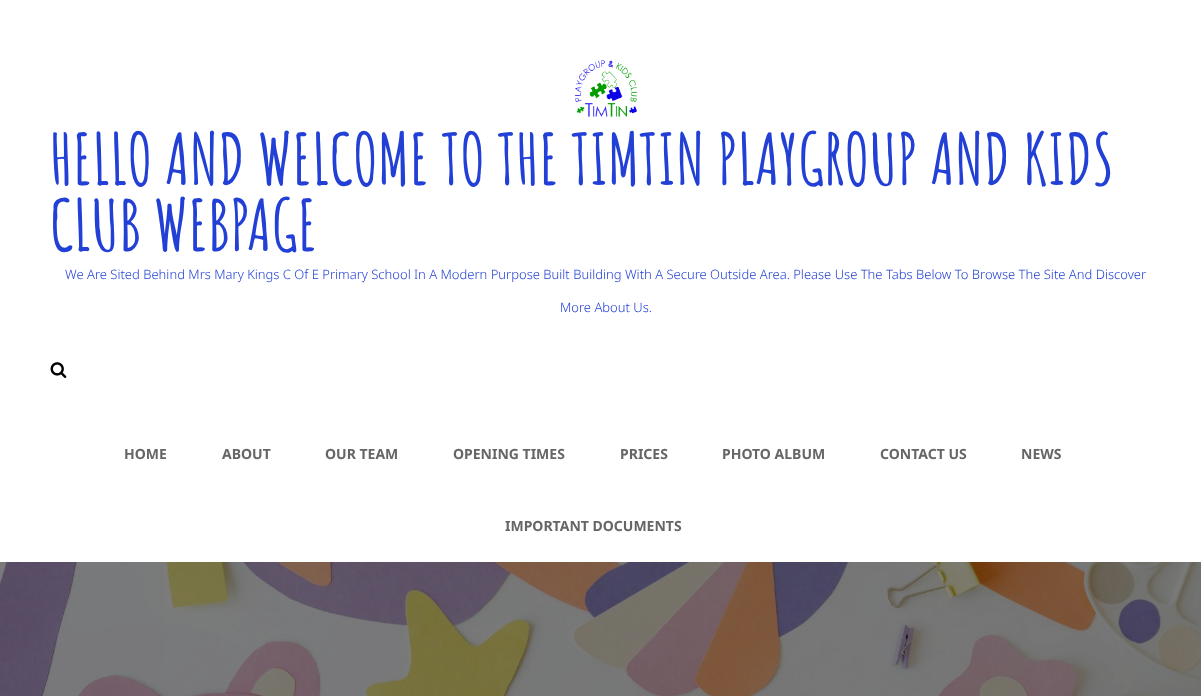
<svg xmlns="http://www.w3.org/2000/svg" width="1201" height="696">
<style>
.a{font:bold 70px Amatic SC;fill:#2240d6}
.b{font:300 13px Noto Sans;fill:#2240d6}
.c{font:bold 14px Noto Sans;fill:#666}
</style>
<rect width="100%" height="100%" fill="#fff"/>
<image href="1.png" x="574" y="60" width="64" height="57"/>
<image href="2.png" x="50" y="362" width="17" height="16"/>
<image href="3.png" x="0" y="562" width="1201" height="134"/>
<text class="a" x="50" y="185">HELLO AND WELCOME TO THE TIMTIN PLAYGROUP AND KIDS</text>
<text class="a" x="50" y="251">CLUB WEBPAGE</text>
<text class="b" x="65" y="279">We Are Sited Behind Mrs Mary Kings C Of E Primary School In A Modern Purpose Built Building With A Secure Outside Area. Please Use The Tabs Below To Browse The Site And Discover</text>
<text class="b" x="560" y="312">More About Us.</text>
<text class="c" x="124" y="459">HOME</text>
<text class="c" x="222" y="459">ABOUT</text>
<text class="c" x="325" y="459">OUR TEAM</text>
<text class="c" x="453" y="459">OPENING TIMES</text>
<text class="c" x="620" y="459">PRICES</text>
<text class="c" x="722" y="459">PHOTO ALBUM</text>
<text class="c" x="880" y="459">CONTACT US</text>
<text class="c" x="1021" y="459">NEWS</text>
<text class="c" x="505" y="531">IMPORTANT DOCUMENTS</text>
</svg>
